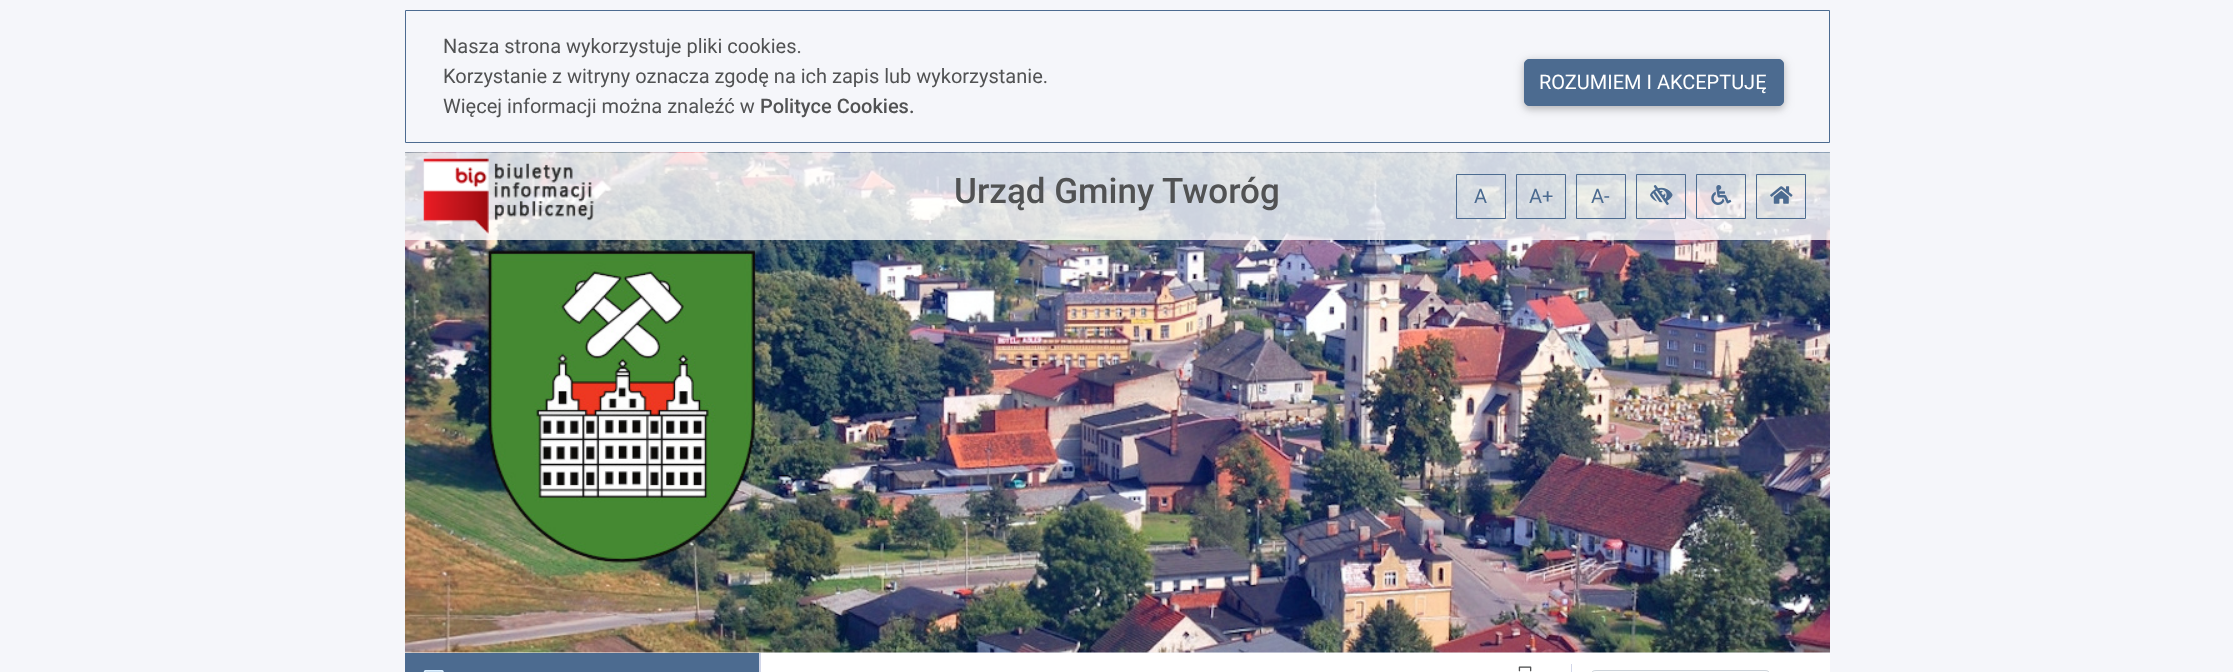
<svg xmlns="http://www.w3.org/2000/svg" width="2233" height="672">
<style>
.a{font:20px Roboto;fill:#515253}
.b{font:500 20px Roboto;fill:#515253}
.c{font:20px Roboto;fill:#fff}
.d{font:500 35px Roboto;fill:#515253}
.e{font:20px Roboto;fill:#4c6b90}
</style>
<rect width="100%" height="100%" fill="#f5f6fa"/>
<path fill="none" stroke="#4c6b90" d="M405.5 10.5h1424v132H405.5z"/>
<rect fill="#0000001f" filter="blur(6px)" x="1524" y="61" width="260" height="48" rx="5"/>
<rect fill="#00000029" filter="blur(3px)" x="1524" y="61" width="260" height="48" rx="5"/>
<rect fill="#4c6b90" stroke="#4c6b90" x="1524.5" y="59.5" width="259" height="46" rx="4.5"/>
<image href="1.png" x="405" y="152" width="1425" height="501"/>
<path fill="#ffffffcc" d="M405 153h1425v87H405z"/>
<image href="2.png" x="423" y="158" width="171" height="76"/>
<path fill="none" stroke="#4c6b90" d="M1456.5 174.5h49v44H1456.5z"/>
<path fill="none" stroke="#4c6b90" d="M1516.5 174.5h49v44H1516.5z"/>
<path fill="none" stroke="#4c6b90" d="M1576.5 174.5h49v44H1576.5z"/>
<path fill="none" stroke="#4c6b90" d="M1636.5 174.5h49v44H1636.5z"/>
<image href="3.png" x="1650" y="185" width="23" height="20"/>
<path fill="none" stroke="#4c6b90" d="M1696.5 174.5h49v44H1696.5z"/>
<image href="4.png" x="1711" y="185" width="21" height="20"/>
<path fill="none" stroke="#4c6b90" d="M1756.5 174.5h49v44H1756.5z"/>
<image href="5.png" x="1770" y="186" width="23" height="18"/>
<path fill="#d3d7e9" d="M759 653h2v19H759z"/>
<path fill="#4c6b90" d="M405 653h354v19H405z"/>
<image href="6.png" x="423" y="670" width="21" height="2"/>
<path fill="#fff" d="M761 653h1069v19H761z"/>
<image href="7.png" x="1518" y="666" width="14" height="6"/>
<path fill="#d3d7e9" d="M1571 664h1v8H1571z"/>
<rect fill="none" stroke="#ced4da" x="1591.5" y="670.5" width="178" height="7" rx="4.5"/>
<text class="a" x="443" y="53">Nasza strona wykorzystuje pliki cookies.</text>
<text class="a" x="443" y="83">Korzystanie z witryny oznacza zgodę na ich zapis lub wykorzystanie.</text>
<text class="a" x="443" y="113">Więcej informacji można znaleźć w</text>
<text class="b" x="760" y="113">Polityce Cookies.</text>
<text class="c" x="1539" y="89">ROZUMIEM I AKCEPTUJĘ</text>
<text class="d" x="954" y="203">Urząd Gminy Tworóg</text>
<text class="e" x="1474" y="203">A</text>
<text class="e" x="1529" y="203">A+</text>
<text class="e" x="1591" y="203">A-</text>
</svg>
